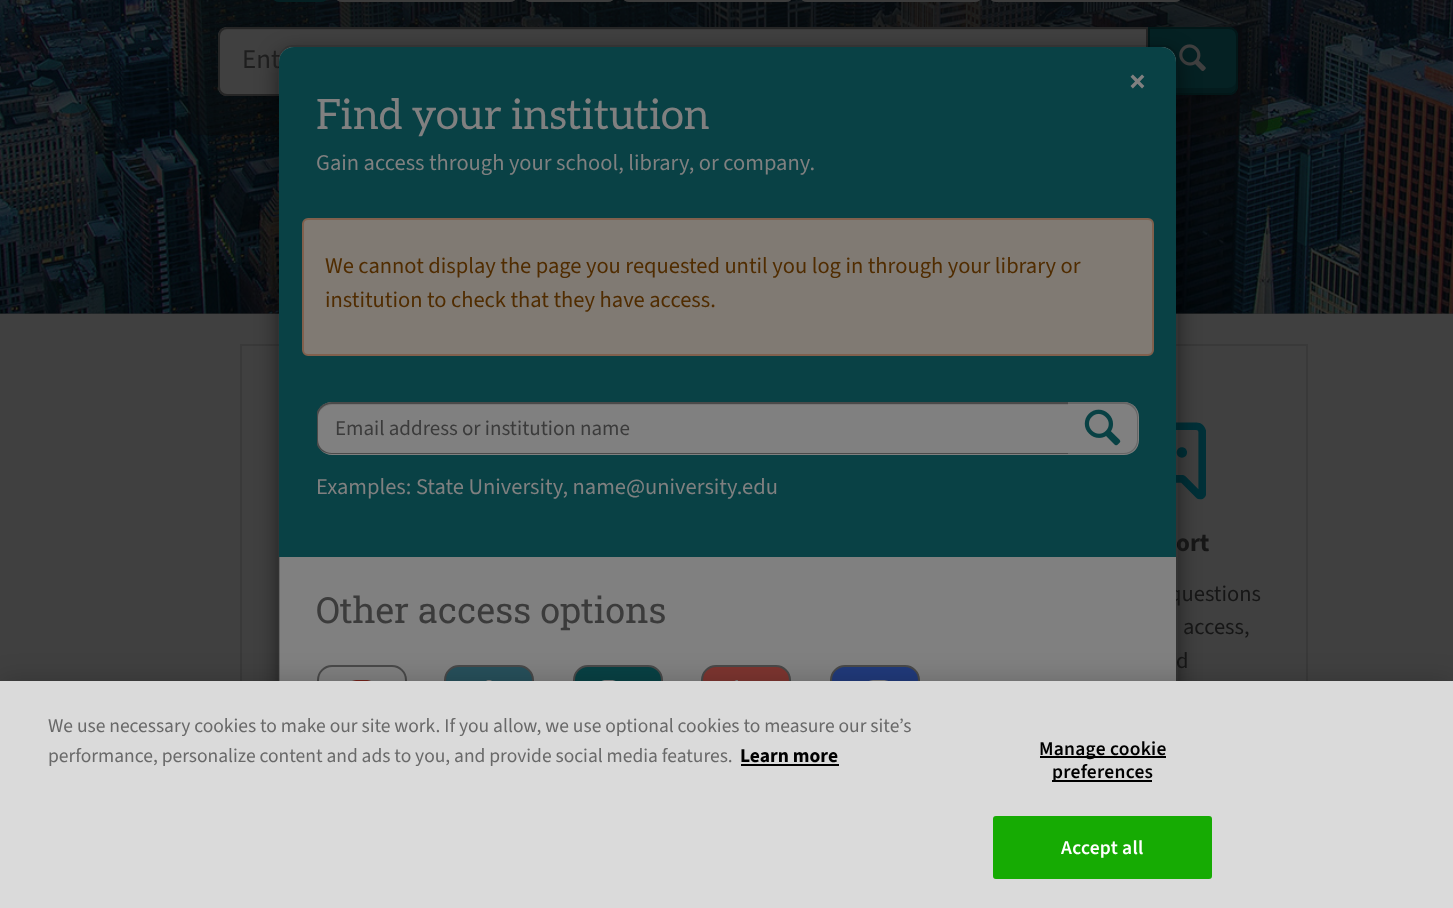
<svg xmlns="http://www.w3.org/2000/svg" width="1453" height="908">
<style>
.a{font:27px 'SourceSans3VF';fill:#1e1e1e}
.b{font:bold 25px 'SourceSans3VF';fill:#161616}
.c{font:22.5px 'SourceSans3VF';fill:#161616}
.d{font:21px 'SourceSans3VF';fill:#3b3b3b}
.e{font:36px Roboto Slab;fill:#3b3b3b}
.f{font:22.5px 'SourceSans3VF';fill:#808080}
.g{font:22.5px 'SourceSans3VF';fill:#502c00}
.h{font:bold 32px 'SourceSans3VF';fill:#808080}
.i{font:42px Aleo;fill:#808080}
.j{font:19.5px 'SourceSans3VF';fill:#696969}
.k{font:bold 19.5px 'SourceSans3VF';fill:#000}
.l{font:600 19.5px 'SourceSans3VF';letter-spacing:0.25px;fill:#000}
.m{font:600 19.5px 'SourceSans3VF';letter-spacing:0.25px;fill:#fff}
</style>
<defs>
<clipPath id="clip1"><path d="M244 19h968v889h-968zm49 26h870c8.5 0 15 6.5 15 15v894c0 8.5-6.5 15-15 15h-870c-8.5 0-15-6.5-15-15v-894c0-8.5 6.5-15 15-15z" clip-rule="evenodd"/></clipPath>
<clipPath id="clip2"><path d="M317 402h822v110H317z"/></clipPath>
<clipPath id="clip3"><path d="M848 680h54v60H848z"/></clipPath>
</defs>
<rect width="100%" height="100%" fill="#404040"/>
<image href="1.png" x="0" y="0" width="1453" height="314"/>
<rect fill="#0a0a0a66" x="188" y="-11" width="1080" height="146" rx="11"/>
<rect fill="#052123" x="273" y="-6" width="54" height="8" rx="6"/>
<rect fill="#3c3c3c" x="336" y="-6" width="180" height="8" rx="6"/>
<rect fill="#3c3c3c" x="525" y="-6" width="89" height="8" rx="6"/>
<rect fill="#3c3c3c" x="623" y="-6" width="169" height="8" rx="6"/>
<rect fill="#3c3c3c" x="801" y="-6" width="180" height="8" rx="6"/>
<rect fill="#3c3c3c" x="990" y="-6" width="191" height="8" rx="6"/>
<path fill="#404040" d="M227 27h921v69h-921c-5 0-9-4-9-9v-51c0-5 4-9 9-9z"/>
<path fill="#3b3b3b" d="M226 30h920v-1h-919c-5 0-8 4-8 9c0-5 3-8 7-8z"/>
<path fill="none" stroke="#252525" stroke-width="2" d="M227 28h920v67h-920c-4.5 0-8-3.5-8-8v-51c0-4.5 3.5-8 8-8z"/>
<path fill="#052123" d="M1148 27h81c5 0 9 4 9 9v50c0 5-4 9-9 9h-81z"/>
<path fill="#041b1d" d="M1149 88v5h79c4 0 8-4 8-8v-4c0 4-3 7-8 7z"/>
<path fill="none" stroke="#031718" stroke-width="2" d="M1149 28h80c4.5 0 8 3.5 8 8v50c0 4.5-3.5 8-8 8h-80z"/>
<image href="2.png" x="1179" y="44" width="27" height="28"/>
<path fill="none" stroke="#393939" stroke-width="2" d="M241 345h363v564H241z"/>
<path fill="none" stroke="#393939" stroke-width="2" d="M972 345h335v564H972z"/>
<image href="8.png" x="1176" y="422" width="30" height="78"/>
<g clip-path="url(#clip1)">
<rect fill="#00000080" filter="blur(11px)" x="278" y="53" width="900" height="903" rx="15"/>
</g>
<text class="a" x="242" y="68">Ent</text>
<text class="b" x="1176" y="551">ort</text>
<text class="c" x="1169" y="601">questions</text>
<path fill="#808080" d="M293 47h869c7.5 0 14 6.5 14 14v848h-897v-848c0-7.5 6.5-14 14-14z"/>
<text class="c" x="1183" y="634">access,</text>
<text class="c" x="1176" y="668">d</text>
<rect fill="none" stroke="#00000033" stroke-width="2" x="279" y="46" width="898" height="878" rx="14"/>
<path fill="#094145" d="M279 195h897v362H279z"/>
<path fill="#808080" d="M332 402h736v53h-736c-8.5 0-15-6.5-15-15v-23c0-8.5 6.5-15 15-15z"/>
<path fill="#767676" d="M332 405h736v-1h-736c-8 0-14 6-14 14c0-7 6-13 14-13z"/>
<g clip-path="url(#clip2)">
<path fill="#4a4a4a" fill-rule="evenodd" d="M332 402h736v52h-736c-9 0-16-6-16-14v-23c0-8 7-15 16-15zm0 2h736v49h-736c-8 0-14-6-14-13v-23c0-7 6-13 14-13z"/>
</g>
<text class="d" x="335" y="435">Email address or institution name</text>
<rect fill="#213a7b" stroke="#494949" stroke-width="2" x="831" y="666" width="88" height="88" rx="14"/>
<g clip-path="url(#clip3)">
<path fill="#808080" fill-rule="evenodd" d="M848 710c0-28 33-40 52-22l-8 10c-4-4-9-7-15-7c-9 0-16 8-16 18c0 10 7 19 16 19c7 0 11-3 16-7l8 8c-19 20-53 10-53-19z"/>
</g>
<rect fill="#7d3530" stroke="#494949" stroke-width="2" x="702" y="666" width="88" height="88" rx="14"/>
<image href="7.png" x="734" y="680" width="4" height="1"/>
<rect fill="#084144" stroke="#494949" stroke-width="2" x="574" y="666" width="88" height="88" rx="14"/>
<image href="6.png" x="601" y="680" width="15" height="1"/>
<rect fill="#27505b" stroke="#494949" stroke-width="2" x="445" y="666" width="88" height="88" rx="14"/>
<image href="5.png" x="486" y="680" width="6" height="1"/>
<rect fill="none" stroke="#494949" stroke-width="2" x="318" y="666" width="88" height="88" rx="14"/>
<image href="4.png" x="352" y="680" width="19" height="1"/>
<text class="e" x="316" y="623">Other access options</text>
<path fill="#808080" d="M1068 402h56c8.5 0 15 6.5 15 15v23c0 8.5-6.5 15-15 15h-56z"/>
<path fill="#666" fill-rule="evenodd" d="M1068 402h56c8 0 14 7 14 15v23c0 8-6 14-14 14h-56zm0 2h56c7 0 13 6 13 13v23c0 7-6 13-13 13h-56z"/>
<image href="3.png" x="1084" y="409" width="37" height="37"/>
<text class="f" x="316" y="494">Examples: State University, name@university.edu</text>
<rect fill="#807a73" stroke="#80604d" stroke-width="2" x="303" y="219" width="850" height="136" rx="5"/>
<text class="g" x="325" y="307">institution to check that they have access.</text>
<text class="g" x="325" y="273">We cannot display the page you requested until you log in through your library or</text>
<path fill="#094145" d="M294 47h867c8.5 0 15 6.5 15 15v133h-897v-133c0-8.5 6.5-15 15-15z"/>
<text class="h" x="1129" y="92">×</text>
<text class="f" x="316" y="170">Gain access through your school, library, or company.</text>
<text class="i" x="316" y="129">Find your institution</text>
<path fill="#00000033" filter="blur(13.5px)" d="M0 681h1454v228H0z"/>
<path fill="#dadada" d="M0 681h1453v227H0z"/>
<text class="j" x="48" y="732">We use necessary cookies to make our site work. If you allow, we use optional cookies to measure our site’s</text>
<text class="j" x="48" y="762">performance, personalize content and ads to you, and provide social media features.</text>
<text class="k" x="740" y="762">Learn more</text>
<path fill="#000" d="M741 764h98v2H741z"/>
<path fill="#000" d="M1040 756h126v2H1040z"/>
<text class="l" x="1039" y="755">Manage cookie</text>
<path fill="#000" d="M1052 780h100v2H1052z"/>
<text class="l" x="1052" y="778">preferences</text>
<rect fill="#16ab03" stroke="#16ab03" stroke-width="2" x="994" y="817" width="217" height="61" rx="2"/>
<text class="m" x="1061" y="854">Accept all</text>
</svg>
